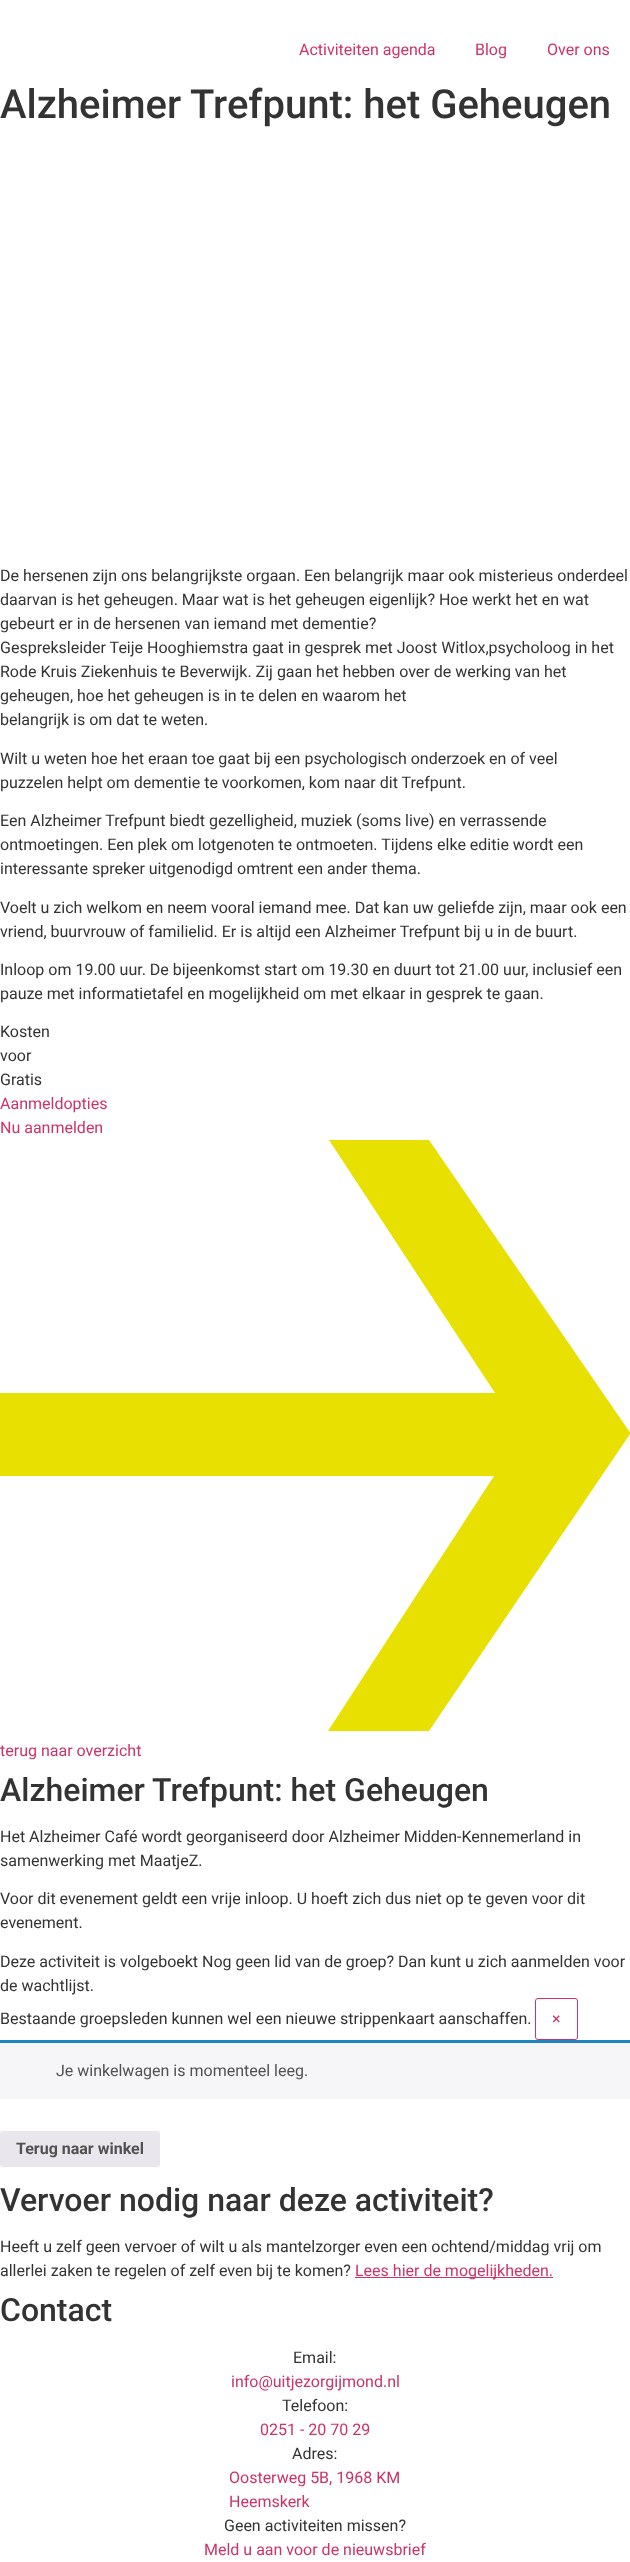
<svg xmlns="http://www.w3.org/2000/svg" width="630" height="2562">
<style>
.a{font:16px Roboto;fill:#c36}
.b{font:500 40px Roboto;fill:#333}
.c{font:16px Roboto;fill:#333}
.d{font:500 32px Roboto;fill:#333}
.e{font:16px Roboto;fill:#515151}
.f{font:bold 16px Roboto;fill:#515151}
</style>
<rect width="100%" height="100%" fill="#fff"/>
<path fill="#e7e000" d="M630 1434l-201 297h-101l166-255h-494v-83h495l-166-253h100l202 294z"/>
<rect fill="none" stroke="#c36" x="535.5" y="1998.5" width="42" height="41" rx="2.5"/>
<path fill="#f6f5f8" d="M0 2043h630v56H0z"/>
<path fill="#1e85be" d="M0 2040h630v3H0z"/>
<rect fill="#e9e6ed" y="2131" width="160" height="36" rx="3"/>
<path fill="#c36" d="M355 2277h198v1H355z"/>
<text class="a" x="299" y="55">Activiteiten agenda</text>
<text class="a" x="475" y="55">Blog</text>
<text class="a" x="547" y="55">Over ons</text>
<text class="b" x="0" y="118">Alzheimer Trefpunt: het Geheugen</text>
<text class="c" x="0" y="581">De hersenen zijn ons belangrijkste orgaan. Een belangrijk maar ook misterieus onderdeel</text>
<text class="c" x="0" y="605">daarvan is het geheugen. Maar wat is het geheugen eigenlijk? Hoe werkt het en wat</text>
<text class="c" x="0" y="629">gebeurt er in de hersenen van iemand met dementie?</text>
<text class="c" x="0" y="653">Gespreksleider Teije Hooghiemstra gaat in gesprek met Joost Witlox,psycholoog in het</text>
<text class="c" x="0" y="677">Rode Kruis Ziekenhuis te Beverwijk. Zij gaan het hebben over de werking van het</text>
<text class="c" x="0" y="701">geheugen, hoe het geheugen is in te delen en waarom het</text>
<text class="c" x="0" y="725">belangrijk is om dat te weten.</text>
<text class="c" x="0" y="764">Wilt u weten hoe het eraan toe gaat bij een psychologisch onderzoek en of veel</text>
<text class="c" x="0" y="788">puzzelen helpt om dementie te voorkomen, kom naar dit Trefpunt.</text>
<text class="c" x="0" y="826">Een Alzheimer Trefpunt biedt gezelligheid, muziek (soms live) en verrassende</text>
<text class="c" x="0" y="850">ontmoetingen. Een plek om lotgenoten te ontmoeten. Tijdens elke editie wordt een</text>
<text class="c" x="0" y="874">interessante spreker uitgenodigd omtrent een ander thema.</text>
<text class="c" x="0" y="913">Voelt u zich welkom en neem vooral iemand mee. Dat kan uw geliefde zijn, maar ook een</text>
<text class="c" x="0" y="937">vriend, buurvrouw of familielid. Er is altijd een Alzheimer Trefpunt bij u in de buurt.</text>
<text class="c" x="0" y="975">Inloop om 19.00 uur. De bijeenkomst start om 19.30 en duurt tot 21.00 uur, inclusief een</text>
<text class="c" x="0" y="999">pauze met informatietafel en mogelijkheid om met elkaar in gesprek te gaan.</text>
<text class="c" x="0" y="1037">Kosten</text>
<text class="c" x="0" y="1061">voor</text>
<text class="c" x="0" y="1085">Gratis</text>
<text class="a" x="0" y="1109">Aanmeldopties</text>
<text class="a" x="0" y="1133">Nu aanmelden</text>
<text class="a" x="0" y="1756">terug naar overzicht</text>
<text class="d" x="0" y="1801">Alzheimer Trefpunt: het Geheugen</text>
<text class="c" x="0" y="1842">Het Alzheimer Café wordt georganiseerd door Alzheimer Midden-Kennemerland in</text>
<text class="c" x="0" y="1866">samenwerking met MaatjeZ.</text>
<text class="c" x="0" y="1904">Voor dit evenement geldt een vrije inloop. U hoeft zich dus niet op te geven voor dit</text>
<text class="c" x="0" y="1928">evenement.</text>
<text class="c" x="0" y="1967">Deze activiteit is volgeboekt Nog geen lid van de groep? Dan kunt u zich aanmelden voor</text>
<text class="c" x="0" y="1991">de wachtlijst.</text>
<text class="c" x="0" y="2024">Bestaande groepsleden kunnen wel een nieuwe strippenkaart aanschaffen.</text>
<text class="a" x="552" y="2024">×</text>
<text class="e" x="56" y="2076">Je winkelwagen is momenteel leeg.</text>
<text class="f" x="16" y="2154">Terug naar winkel</text>
<text class="d" x="0" y="2211">Vervoer nodig naar deze activiteit?</text>
<text class="c" x="0" y="2252">Heeft u zelf geen vervoer of wilt u als mantelzorger even een ochtend/middag vrij om</text>
<text class="c" x="0" y="2276">allerlei zaken te regelen of zelf even bij te komen?</text>
<text class="a" x="355" y="2276">Lees hier de mogelijkheden.</text>
<text class="d" x="0" y="2321">Contact</text>
<text class="c" x="293" y="2363">Email:</text>
<text class="a" x="231" y="2387">info@uitjezorgijmond.nl</text>
<text class="c" x="282" y="2411">Telefoon:</text>
<text class="a" x="260" y="2435">0251 - 20 70 29</text>
<text class="c" x="292" y="2459">Adres:</text>
<text class="a" x="229" y="2483">Oosterweg 5B, 1968 KM</text>
<text class="a" x="229" y="2507">Heemskerk</text>
<text class="c" x="224" y="2531">Geen activiteiten missen?</text>
<text class="a" x="204" y="2555">Meld u aan voor de nieuwsbrief</text>
</svg>
